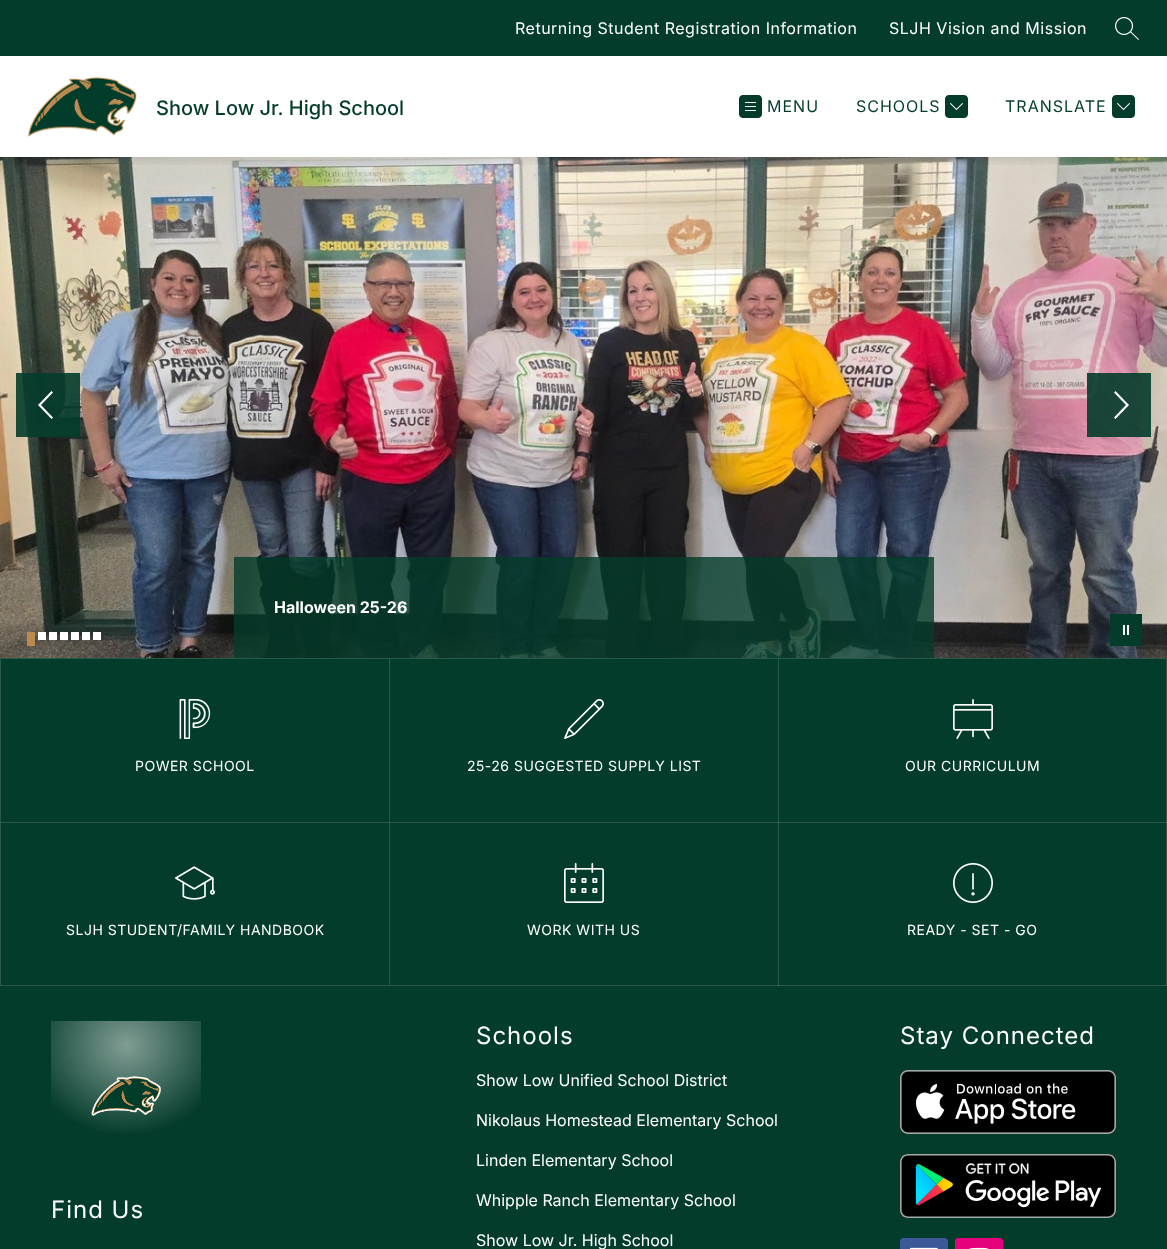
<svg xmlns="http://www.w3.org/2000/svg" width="1167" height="1249">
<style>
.a{font:16px Inter;letter-spacing:0.5px;fill:#fff}
.b{font:500 20px Inter;fill:#043c2b}
.c{font:16px Inter;letter-spacing:1px;fill:#043c2b}
.d{font:bold 16px Inter;fill:#fff}
.e{font:14px Inter;letter-spacing:0.5px;fill:#fff}
.f{font:24px Inter;letter-spacing:1px;fill:#fff}
.g{font:16px Inter;fill:#fff}
</style>
<defs>
<clipPath id="clip1"><path d="M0 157h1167v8H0z"/></clipPath>
</defs>
<rect width="100%" height="100%" fill="#fff"/>
<image href="5.png" x="0" y="157" width="1167" height="501"/>
<g clip-path="url(#clip1)">
<path fill="#0000001a" filter="blur(5px)" d="M0 4h1167v157H0z"/>
</g>
<path fill="#043c2b" d="M0 0h1167v56H0z"/>
<image href="1.png" x="1115" y="17" width="24" height="23"/>
<image href="2.png" x="27" y="76" width="110" height="61"/>
<image href="3.png" x="739" y="95" width="23" height="23"/>
<image href="4.png" x="945" y="95" width="23" height="23"/>
<image href="4.png" x="1112" y="95" width="23" height="23"/>
<path fill="#043c2be6" d="M16 373h64v64H16z"/>
<path fill="#fff" fill-rule="evenodd" d="M41 405l12-12.5l-1.5-1.5l-13.5 14l13.5 14l1.5-1.5z"/>
<path fill="#043c2be6" d="M1087 373h64v64H1087z"/>
<path fill="#fff" fill-rule="evenodd" d="M1126 405l-12 12.5l1.5 1.5l13.5-14l-13.5-14l-1.5 1.5z"/>
<path fill="#ba8a50" d="M27 632h8v14H27z"/>
<path fill="#fff" d="M38 632h8v8H38z"/>
<path fill="#fff" d="M49 632h8v8H49z"/>
<path fill="#fff" d="M60 632h8v8H60z"/>
<path fill="#fff" d="M71 632h8v8H71z"/>
<path fill="#fff" d="M82 632h8v8H82z"/>
<path fill="#fff" d="M93 632h8v8H93z"/>
<path fill="#043c2b" d="M1110 614h32v32H1110z"/>
<path fill="#fff" fill-rule="evenodd" d="M1125 625h-2v10h2zm4 0h-2v10h2z"/>
<path fill="#043c2bcc" d="M234 557h700v101H234z"/>
<path fill="#043c2b" d="M0 658h1167v164H0z"/>
<path fill="#2a594b" d="M0 658h389v1h-388z"/>
<path fill="#ffffff26" d="M0 822v-164l1 1v163z"/>
<image href="6.png" x="179" y="699" width="32" height="40"/>
<path fill="#2a594b" d="M389 658h389v1h-388z"/>
<path fill="#ffffff26" d="M389 822v-164l1 1v163z"/>
<image href="7.png" x="564" y="699" width="40" height="40"/>
<path fill="#2a594b" d="M778 658h389l-1 1h-387z"/>
<path fill="#ffffff26" d="M1167 658v164h-1v-163z"/>
<path fill="#ffffff26" d="M778 822v-164l1 1v163z"/>
<image href="8.png" x="953" y="699" width="40" height="40"/>
<path fill="#043c2b" d="M0 822h778v164H0z"/>
<path fill="#2a594b" d="M0 822h389v1h-388z"/>
<path fill="#2a594b" d="M389 986h-389l1-1h388z"/>
<path fill="#ffffff26" d="M0 986v-164l1 1v162z"/>
<image href="9.png" x="175" y="866" width="40" height="34"/>
<path fill="#2a594b" d="M389 822h389v1h-388z"/>
<path fill="#2a594b" d="M778 986h-389l1-1h388z"/>
<path fill="#ffffff26" d="M389 986v-164l1 1v162z"/>
<image href="10.png" x="564" y="863" width="40" height="40"/>
<path fill="#043c2b" stroke="#2a594b" d="M778.5 822.5h388v163H778.5z"/>
<image href="11.png" x="953" y="863" width="40" height="40"/>
<path fill="#043c2b" d="M0 986h1167v263H0z"/>
<image href="12.png" x="900" y="1070" width="216" height="64"/>
<image href="13.png" x="900" y="1154" width="216" height="64"/>
<image href="14.png" x="900" y="1238" width="48" height="11"/>
<image href="15.png" x="955" y="1238" width="48" height="11"/>
<image href="16.png" x="51" y="1021" width="150" height="112"/>
<text class="a" x="515" y="34">Returning Student Registration Information</text>
<text class="a" x="889" y="34">SLJH Vision and Mission</text>
<text class="b" x="156" y="115">Show Low Jr. High School</text>
<text class="c" x="767" y="112">MENU</text>
<text class="c" x="856" y="112">SCHOOLS</text>
<text class="c" x="1005" y="112">TRANSLATE</text>
<text class="d" x="274" y="613">Halloween 25-26</text>
<text class="e" x="135" y="771">POWER SCHOOL</text>
<text class="e" x="467" y="771">25-26 SUGGESTED SUPPLY LIST</text>
<text class="e" x="905" y="771">OUR CURRICULUM</text>
<text class="e" x="66" y="935">SLJH STUDENT/FAMILY HANDBOOK</text>
<text class="e" x="527" y="935">WORK WITH US</text>
<text class="e" x="907" y="935">READY - SET - GO</text>
<text class="f" x="476" y="1044">Schools</text>
<text class="g" x="476" y="1086">Show Low Unified School District</text>
<text class="g" x="476" y="1126">Nikolaus Homestead Elementary School</text>
<text class="g" x="476" y="1166">Linden Elementary School</text>
<text class="g" x="476" y="1206">Whipple Ranch Elementary School</text>
<text class="g" x="476" y="1246">Show Low Jr. High School</text>
<text class="f" x="900" y="1044">Stay Connected</text>
<text class="f" x="51" y="1218">Find Us</text>
</svg>
